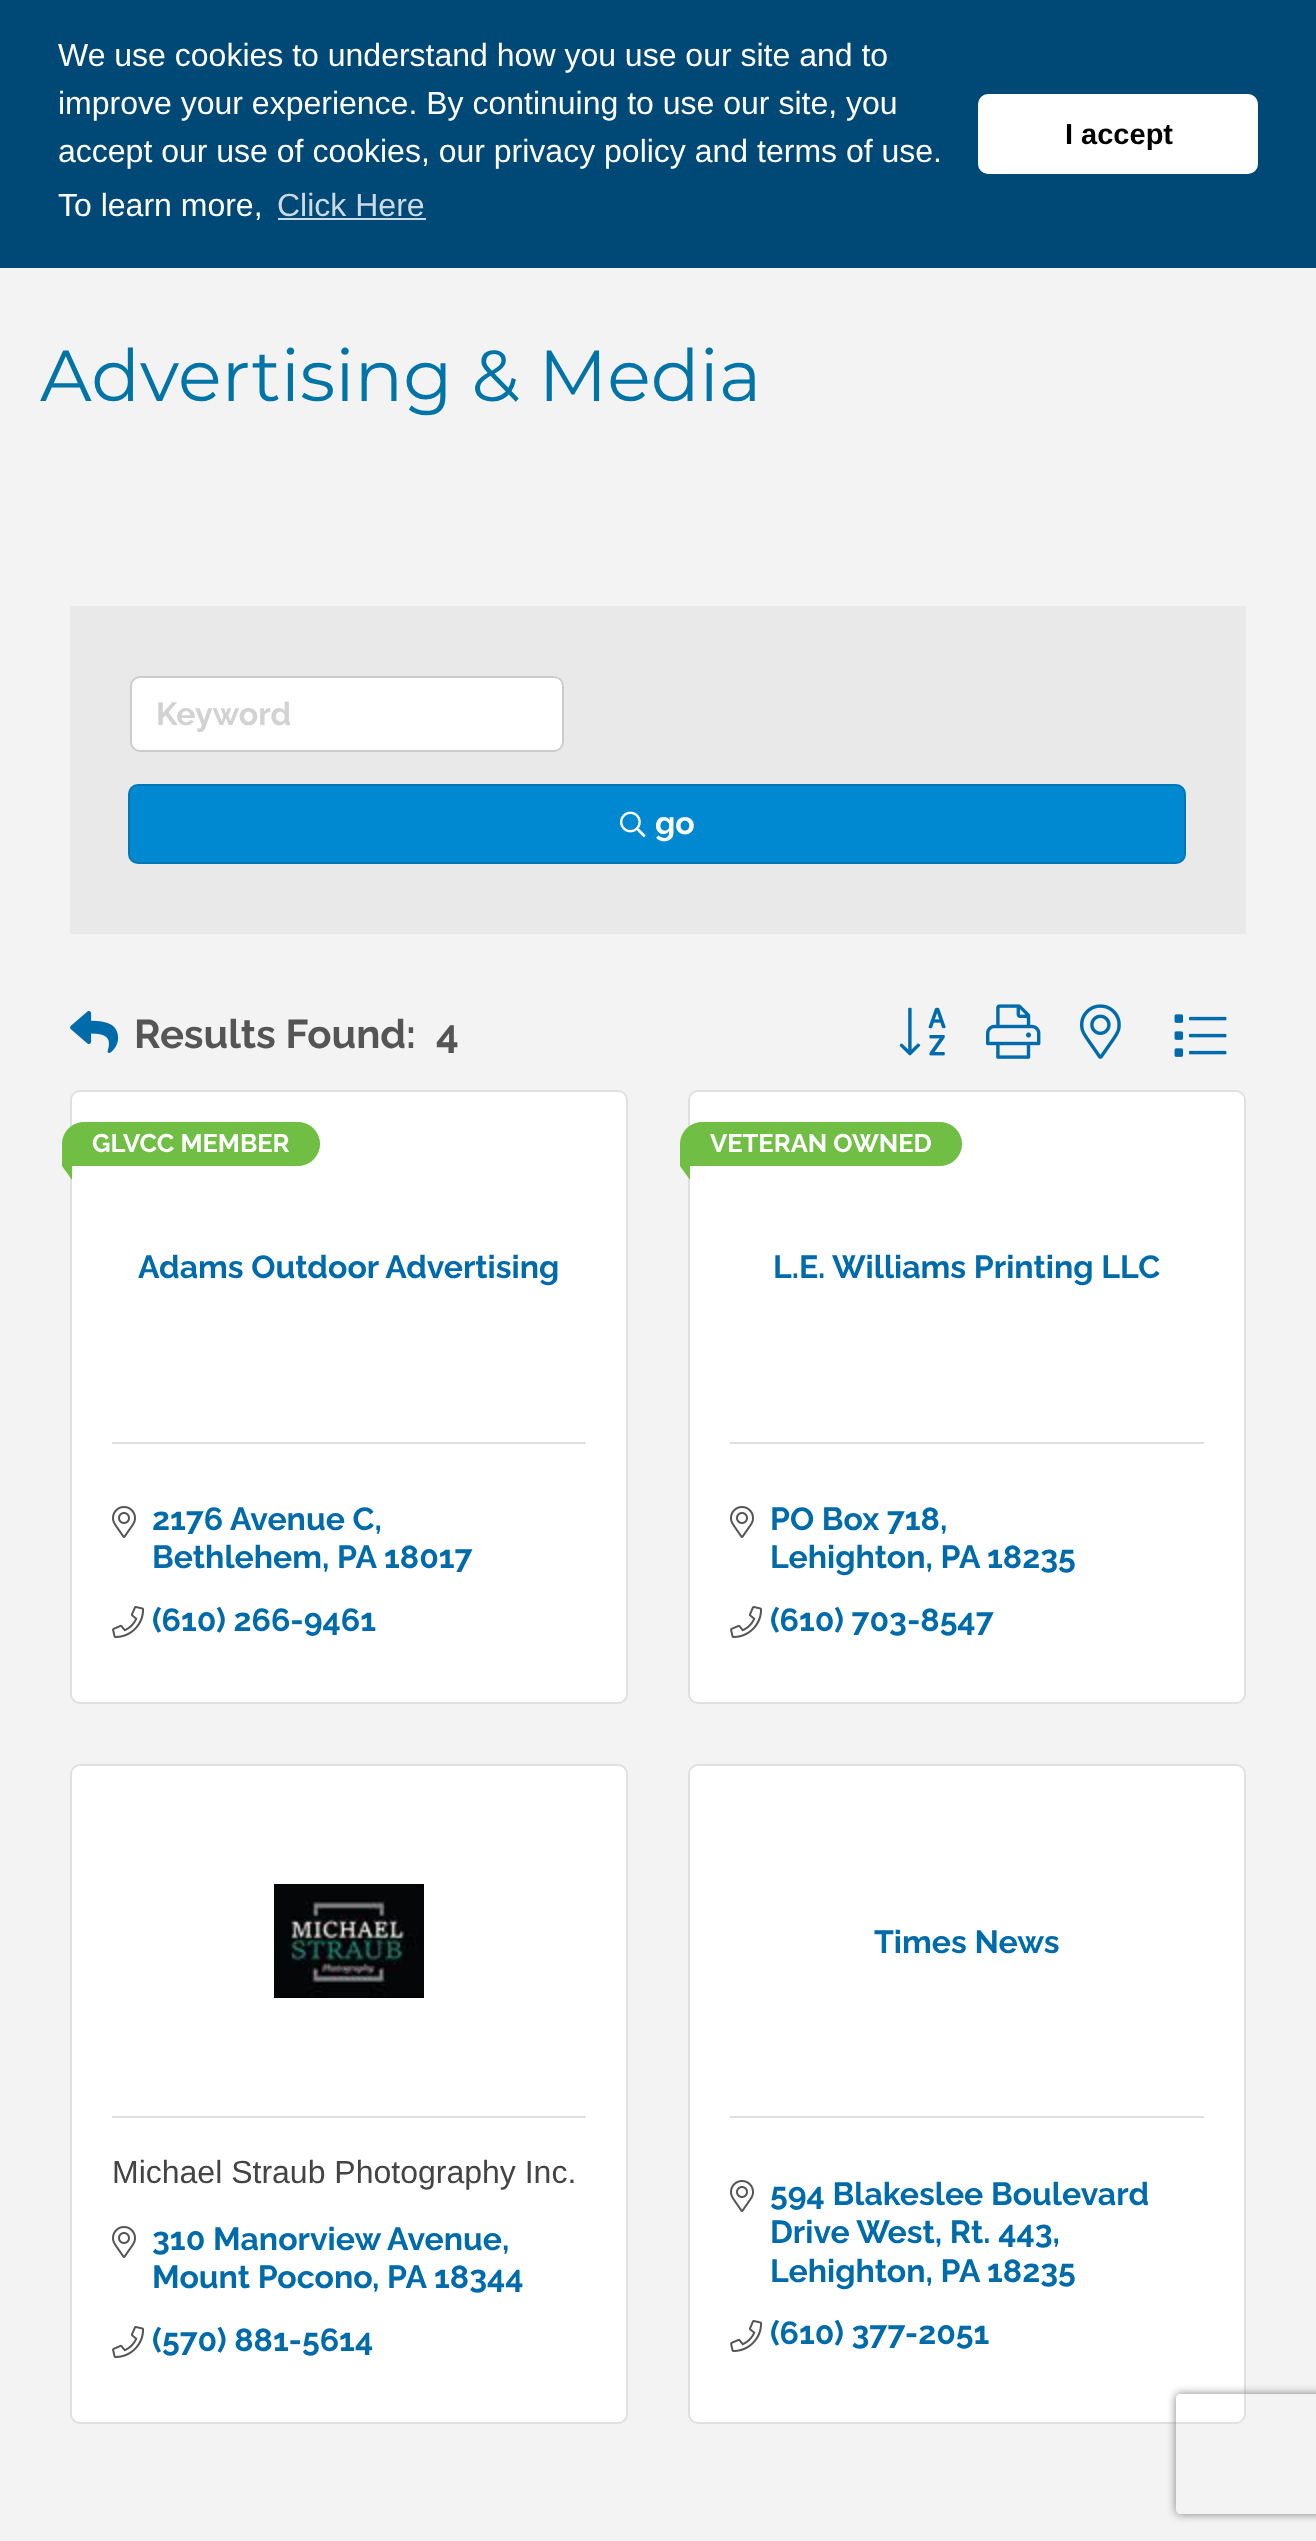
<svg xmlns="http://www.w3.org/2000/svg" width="1316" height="2541">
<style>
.a{font:32px Liberation Sans;fill:#fff}
.b{font:32px Liberation Sans;fill:#ccdae4}
.c{font:bold 29px Liberation Sans;fill:#000}
.d{font:72px Montserrat;fill:#0074a6}
.e{font:100 32px Raleway;fill:#d2d2d2}
.f{font:100 32px Raleway;fill:#fff}
.g{font:100 40px Raleway;fill:#555}
.h{font:100 25.5px Raleway;fill:#fff}
.i{font:100 32px Raleway;fill:#006bab}
.j{font:32px Liberation Sans;fill:#444}
</style>
<defs>
<clipPath id="clip1"><path d="M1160 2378h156v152h-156zm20 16h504c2 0 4 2 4 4v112c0 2-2 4-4 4h-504c-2 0-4-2-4-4v-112c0-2 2-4 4-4z" clip-rule="evenodd"/></clipPath>
<clipPath id="clip2"><path d="M156 694h382v38H156z"/></clipPath>
</defs>
<rect width="100%" height="100%" fill="#f3f3f3"/>
<path fill="#004876" d="M0 0h1316v268H0z"/>
<path fill="#ccdae4" d="M278 218h148v2H278z"/>
<rect fill="#fff" x="978" y="94" width="280" height="80" rx="10"/>
<path fill="#e9e9e9" d="M70 606h1176v328H70z"/>
<rect fill="#fff" x="132" y="678" width="430" height="72" rx="8"/>
<rect fill="none" stroke="#0000001f" stroke-width="2" x="131" y="677" width="432" height="74" rx="9"/>
<rect fill="#0089d0" x="128" y="784" width="1058" height="80" rx="10"/>
<rect fill="none" stroke="#0000001f" stroke-width="2" x="129" y="785" width="1056" height="78" rx="9"/>
<image href="1.png" x="620" y="811" width="26" height="27"/>
<image href="2.png" x="70" y="1011" width="49" height="42"/>
<image href="3.png" x="899" y="1007" width="47" height="49"/>
<image href="4.png" x="986" y="1004" width="55" height="55"/>
<image href="5.png" x="1080" y="1004" width="41" height="55"/>
<image href="6.png" x="1174" y="1014" width="53" height="43"/>
<rect fill="#fff" x="70" y="1090" width="558" height="614" rx="10"/>
<rect fill="none" stroke="#0000001f" stroke-width="2" x="71" y="1091" width="556" height="612" rx="9"/>
<path fill="#70be44" d="M84 1122h214c12 0 22 10 22 22c0 12-10 22-22 22h-235c-.5 0-1-.5-1-1v-21c0-12 10-22 22-22z"/>
<path fill="#70be44" d="M72 1152v28l-10-14z"/>
<path fill="#dfdfdf" d="M112 1442h474v2H112z"/>
<image href="7.png" x="112" y="1506" width="24" height="32"/>
<image href="8.png" x="112" y="1606" width="33" height="32"/>
<rect fill="#fff" x="688" y="1090" width="558" height="614" rx="10"/>
<rect fill="none" stroke="#0000001f" stroke-width="2" x="689" y="1091" width="556" height="612" rx="9"/>
<path fill="#70be44" d="M702 1122h238c12 0 22 10 22 22c0 12-10 22-22 22h-259c-.5 0-1-.5-1-1v-21c0-12 10-22 22-22z"/>
<path fill="#70be44" d="M690 1152v28l-10-14z"/>
<path fill="#dfdfdf" d="M730 1442h474v2H730z"/>
<image href="7.png" x="730" y="1506" width="24" height="32"/>
<image href="8.png" x="730" y="1606" width="33" height="32"/>
<rect fill="#fff" x="70" y="1764" width="558" height="660" rx="10"/>
<rect fill="none" stroke="#0000001f" stroke-width="2" x="71" y="1765" width="556" height="658" rx="9"/>
<image href="9.png" x="274" y="1884" width="150" height="114"/>
<path fill="#dfdfdf" d="M112 2116h474v2H112z"/>
<image href="7.png" x="112" y="2226" width="24" height="32"/>
<image href="8.png" x="112" y="2326" width="33" height="32"/>
<rect fill="#fff" x="688" y="1764" width="558" height="660" rx="10"/>
<rect fill="none" stroke="#0000001f" stroke-width="2" x="689" y="1765" width="556" height="658" rx="9"/>
<path fill="#dfdfdf" d="M730 2116h474v2H730z"/>
<image href="7.png" x="730" y="2180" width="24" height="32"/>
<image href="8.png" x="730" y="2320" width="33" height="32"/>
<g clip-path="url(#clip1)">
<rect fill="#808080" filter="blur(5px)" x="1176" y="2394" width="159" height="120" rx="4"/>
</g>
<text class="a" x="58" y="66">We use cookies to understand how you use our site and to</text>
<text class="a" x="58" y="114">improve your experience. By continuing to use our site, you</text>
<text class="a" x="58" y="162">accept our use of cookies, our privacy policy and terms of use.</text>
<text class="a" x="58" y="216">To learn more,</text>
<text class="b" x="277" y="216">Click Here</text>
<text class="c" x="1065" y="144">I accept</text>
<text class="d" x="40" y="401">Advertising &amp; Media</text>
<g clip-path="url(#clip2)">
<text class="e" x="156" y="725">Keyword</text>
</g>
<text class="f" x="655" y="834">go</text>
<text class="g" x="134" y="1048">Results Found:</text>
<text class="g" x="436" y="1048">4</text>
<text class="h" x="92" y="1152">GLVCC MEMBER</text>
<text class="i" x="138" y="1278">Adams Outdoor Advertising</text>
<text class="i" x="152" y="1530">2176 Avenue C,</text>
<text class="i" x="152" y="1568">Bethlehem, PA</text>
<text class="i" x="384" y="1568">18017</text>
<text class="i" x="152" y="1631">(610) 266-9461</text>
<text class="h" x="710" y="1152">VETERAN OWNED</text>
<text class="i" x="773" y="1278">L.E. Williams Printing LLC</text>
<text class="i" x="770" y="1530">PO Box 718,</text>
<text class="i" x="770" y="1568">Lehighton, PA</text>
<text class="i" x="987" y="1568">18235</text>
<text class="i" x="770" y="1631">(610) 703-8547</text>
<text class="j" x="112" y="2183">Michael Straub Photography Inc.</text>
<text class="i" x="152" y="2250">310 Manorview Avenue,</text>
<text class="i" x="152" y="2288">Mount Pocono</text>
<text class="i" x="372" y="2288">, PA</text>
<text class="i" x="434" y="2288">18344</text>
<text class="i" x="152" y="2351">(570) 881-5614</text>
<text class="i" x="874" y="1953">Times News</text>
<text class="i" x="770" y="2205">594 Blakeslee Boulevard</text>
<text class="i" x="770" y="2243">Drive West, Rt. 443,</text>
<text class="i" x="770" y="2282">Lehighton, PA</text>
<text class="i" x="987" y="2282">18235</text>
<text class="i" x="770" y="2344">(610) 377-2051</text>
</svg>
